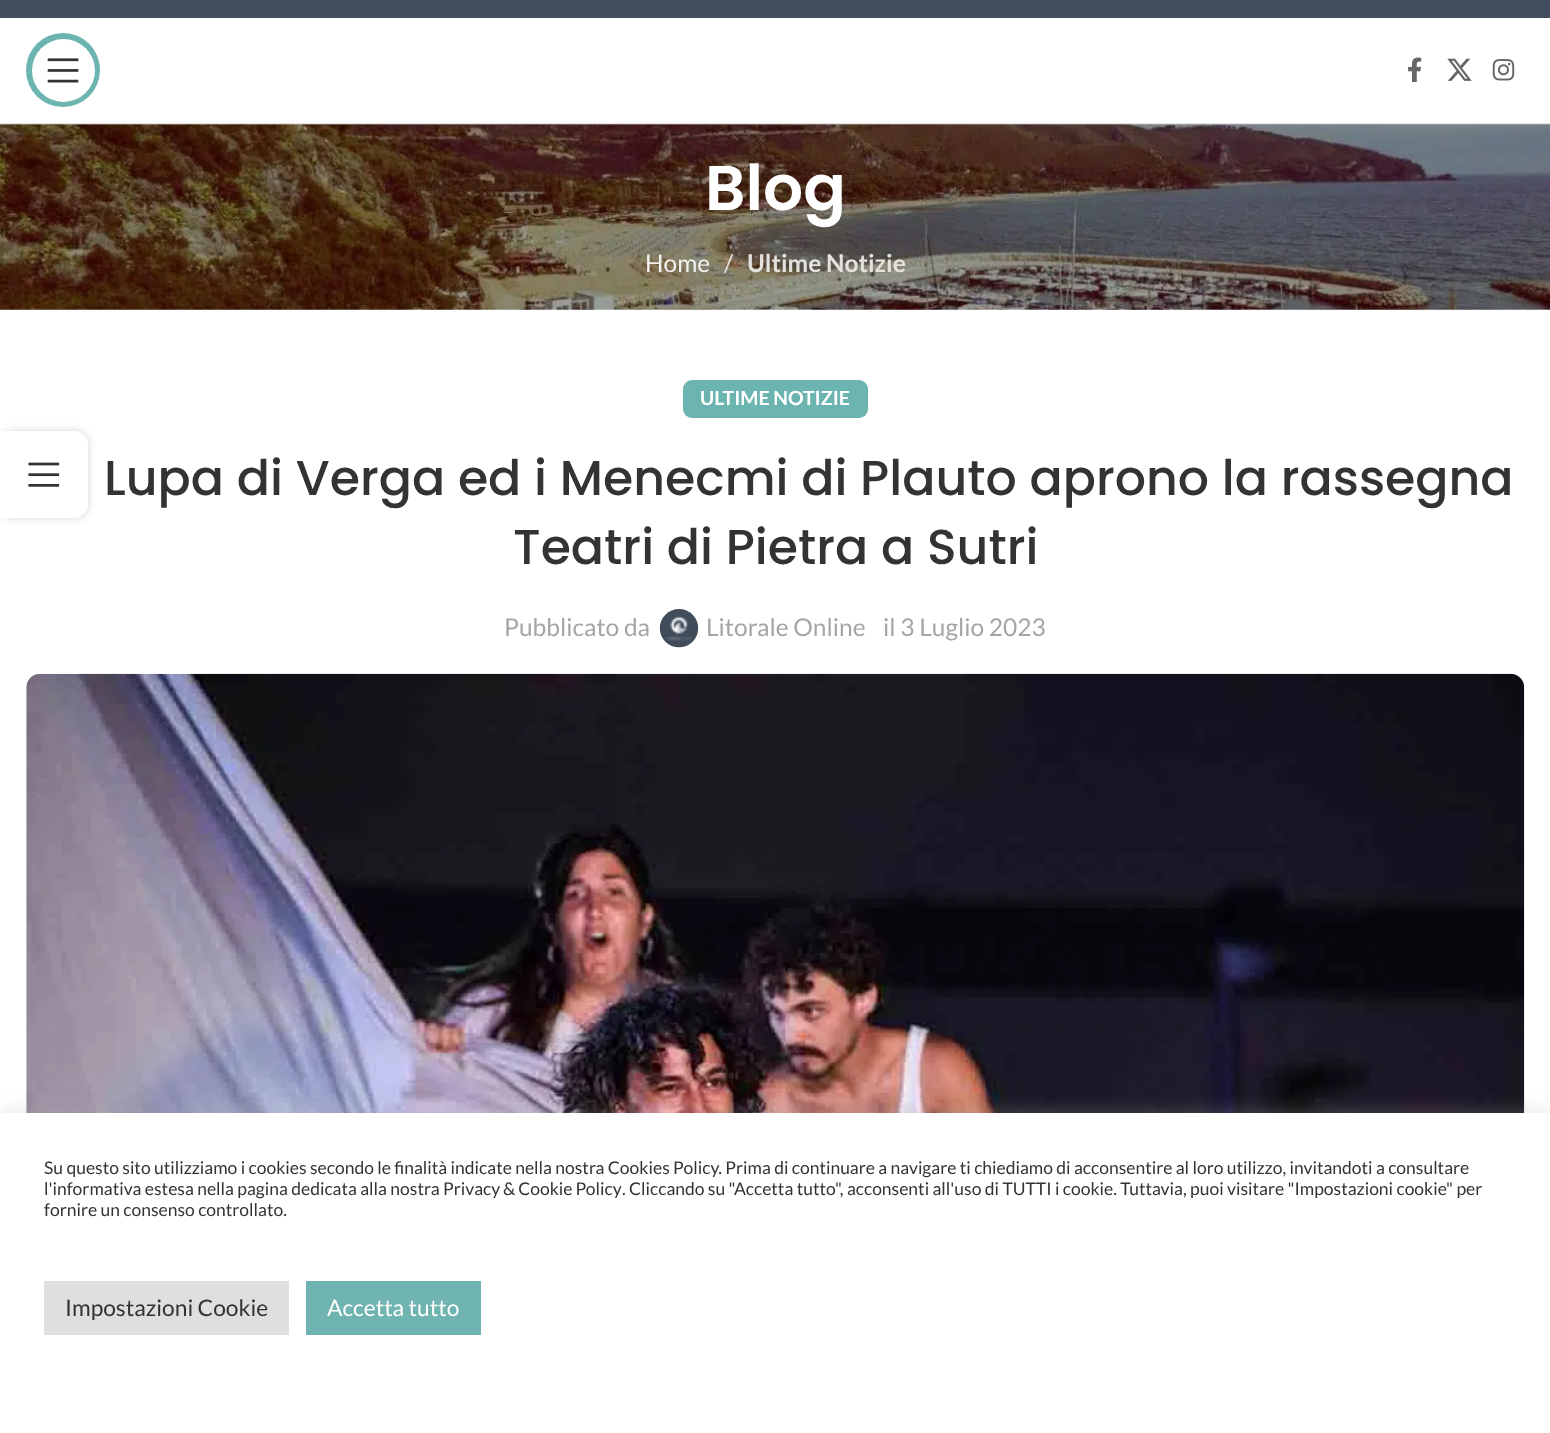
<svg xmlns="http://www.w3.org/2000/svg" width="1550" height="1433">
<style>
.a{font:600 63px Poppins;fill:#fff}
.b{font:24.5px Lato;fill:#f2f1ef}
.c{font:24.5px Lato;fill:#e5e2de}
.d{font:bold 24.5px Lato;fill:#e5e2de}
.e{font:bold 19.5px Lato;fill:#fff}
.f{font:500 49px Poppins;fill:#333}
.g{font:24.5px Lato;fill:#a5a5a5}
.h{font:17.5px Lato;fill:#333}
.i{font:22.75px Lato;fill:#333}
.j{font:22.75px Lato;fill:#fff}
</style>
<defs>
<clipPath id="clip1"><path d="M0 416h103v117h-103zm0 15h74c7.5 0 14 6.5 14 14v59c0 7.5-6.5 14-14 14h-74z" clip-rule="evenodd"/></clipPath>
</defs>
<rect width="100%" height="100%" fill="#fff"/>
<g clip-path="url(#clip1)">
<rect fill="#0000002b" filter="blur(4.5px)" y="431" width="88" height="87" rx="14"/>
</g>
<path fill="#ffffffe6" d="M0 431h74c7.5 0 14 6.5 14 14v59c0 7.5-6.5 14-14 14h-74z"/>
<image href="1.png" x="28" y="462" width="32" height="25"/>
<path fill="#424d5d" d="M0 0h1550v18H0z"/>
<image href="6.png" x="0" y="124" width="1550" height="186"/>
<path fill="#81818133" d="M0 123h1550v2H0z"/>
<circle fill="#6cb4b0" cx="63" cy="70" r="37"/>
<circle fill="#fff" cx="63.5" cy="70.5" r="31.5"/>
<image href="2.png" x="47" y="58" width="32" height="25"/>
<image href="3.png" x="1408" y="57" width="14" height="25"/>
<image href="4.png" x="1447" y="58" width="25" height="23"/>
<image href="5.png" x="1492" y="59" width="23" height="22"/>
<rect fill="#6cb4b0" x="683" y="380" width="185" height="38" rx="9"/>
<image href="7.png" x="659" y="609" width="40" height="39"/>
<image href="8.png" x="26" y="673" width="1499" height="440"/>
<path fill="#acabab4d" filter="blur(9px)" d="M0 1111h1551v321H0z"/>
<path fill="#fff" d="M0 1113h1550v320H0z"/>
<path fill="#dedfe0" d="M44 1281h245v54H44z"/>
<path fill="#6fb4b0" d="M306 1281h175v54H306z"/>
<text class="a" x="705" y="210">Blog</text>
<text class="b" x="645" y="272">Home</text>
<text class="c" x="724" y="272">/</text>
<text class="d" x="747" y="272">Ultime Notizie</text>
<text class="e" x="700" y="405">ULTIME NOTIZIE</text>
<text class="f" x="104" y="495">Lupa di Verga ed i Menecmi di Plauto aprono la rassegna</text>
<text class="f" x="513" y="564">Teatri di Pietra a Sutri</text>
<text class="g" x="504" y="636">Pubblicato da</text>
<text class="g" x="706" y="636">Litorale Online</text>
<text class="g" x="883" y="636">il 3 Luglio 2023</text>
<text class="h" x="44" y="1174">Su questo sito utilizziamo i cookies secondo le finalità indicate nella nostra Cookies Policy. Prima di continuare a navigare ti chiediamo di acconsentire al loro utilizzo, invitandoti a consultare</text>
<text class="h" x="44" y="1195">l'informativa estesa nella pagina dedicata alla nostra</text>
<text class="h" x="443" y="1195" word-spacing="-0.5">Privacy &amp; Cookie Policy</text>
<text class="h" x="622" y="1195">. Cliccando su "Accetta tutto", acconsenti all'uso di TUTTI i cookie. Tuttavia, puoi visitare "Impostazioni cookie" per</text>
<text class="h" x="44" y="1216">fornire un consenso controllato.</text>
<text class="i" x="65" y="1316">Impostazioni Cookie</text>
<text class="j" x="327" y="1316">Accetta tutto</text>
</svg>
